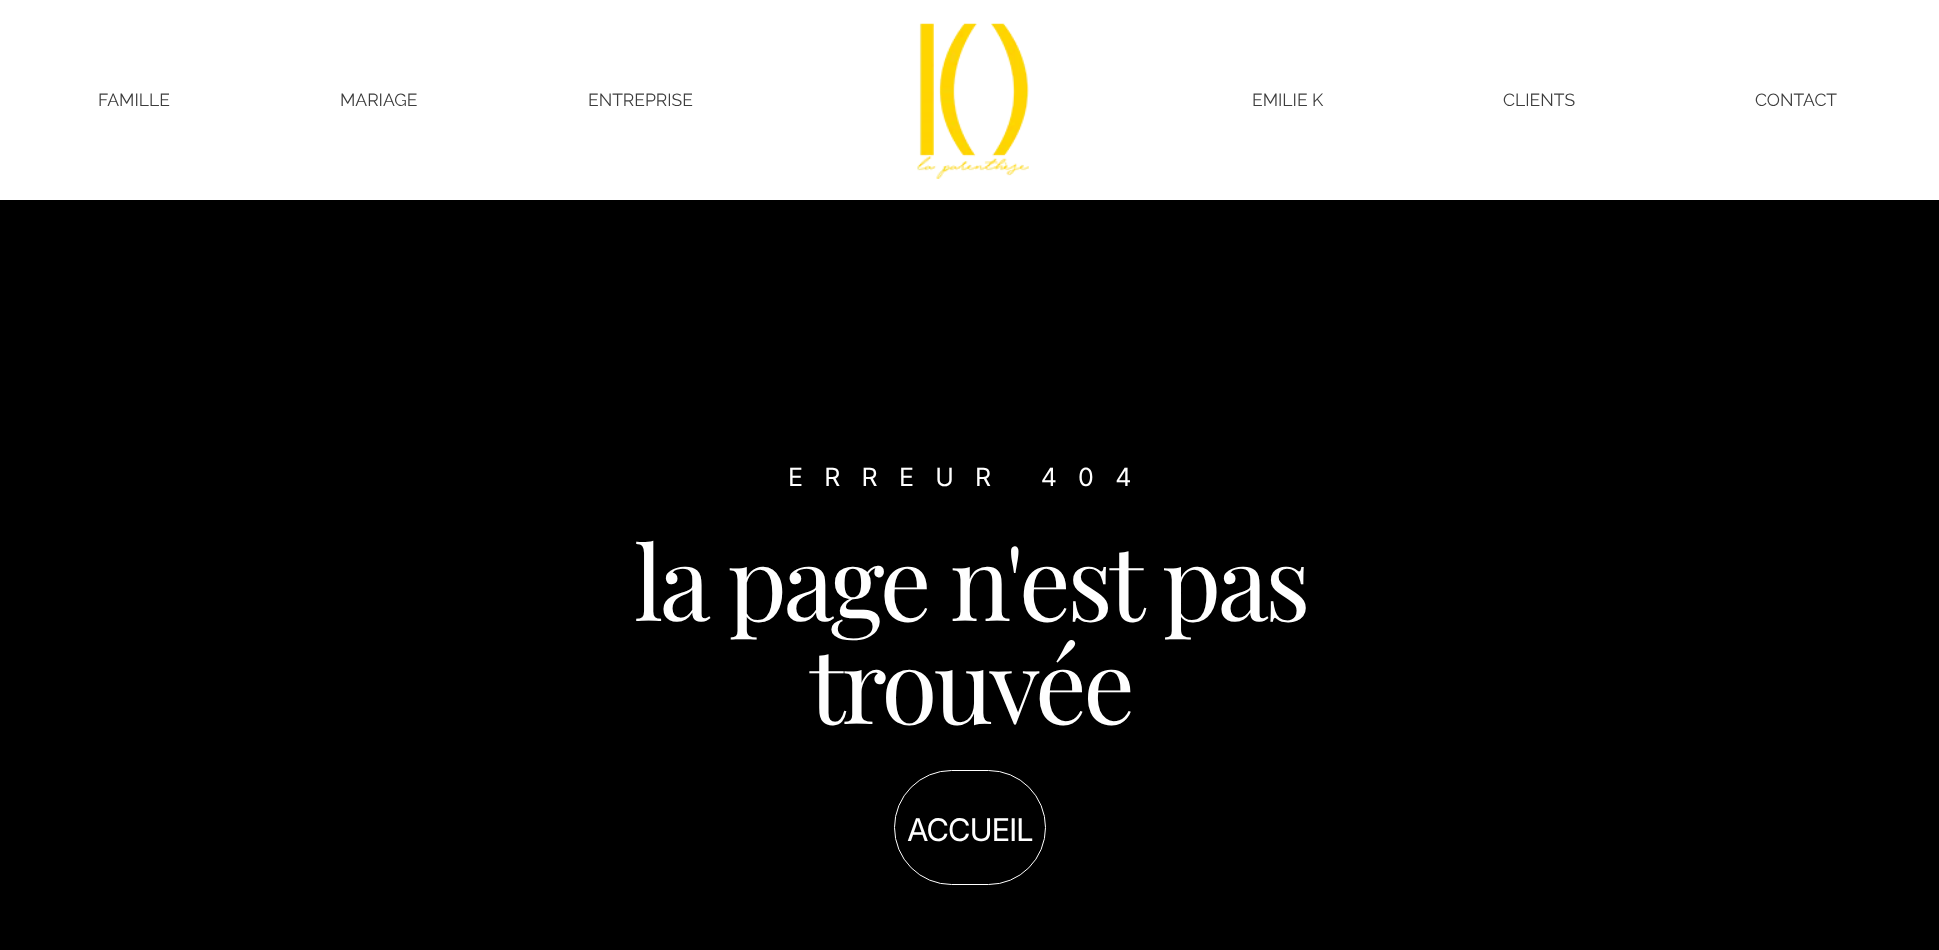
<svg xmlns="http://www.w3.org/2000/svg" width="1939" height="950">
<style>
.a{font:17.5px Raleway;fill:#3d3d3d}
.b{font:25px Inter;letter-spacing:21.25px;fill:#fff}
.c{font:102.5px Playfair Display;letter-spacing:-3.75px;fill:#fff}
.d{font:31.25px Inter;letter-spacing:-1.25px;fill:#fff}
</style>
<rect width="100%" height="100%" fill="#fff"/>
<image href="1.png" x="917" y="23" width="112" height="156"/>
<path fill="#000" d="M0 200h1939v750H0z"/>
<rect fill="none" stroke="#fff" x="894.5" y="770.5" width="151" height="114" rx="57"/>
<text class="a" x="98" y="106">FAMILLE</text>
<text class="a" x="340" y="106">MARIAGE</text>
<text class="a" x="588" y="106">ENTREPRISE</text>
<text class="a" x="1252" y="106">EMILIE K</text>
<text class="a" x="1503" y="106">CLIENTS</text>
<text class="a" x="1755" y="106">CONTACT</text>
<text class="b" x="788" y="486">ERREUR 404</text>
<text class="c" x="634" y="621">la page n'est pas</text>
<text class="c" x="809" y="724">trouvée</text>
<text class="d" x="907" y="841">ACCUEIL</text>
</svg>
